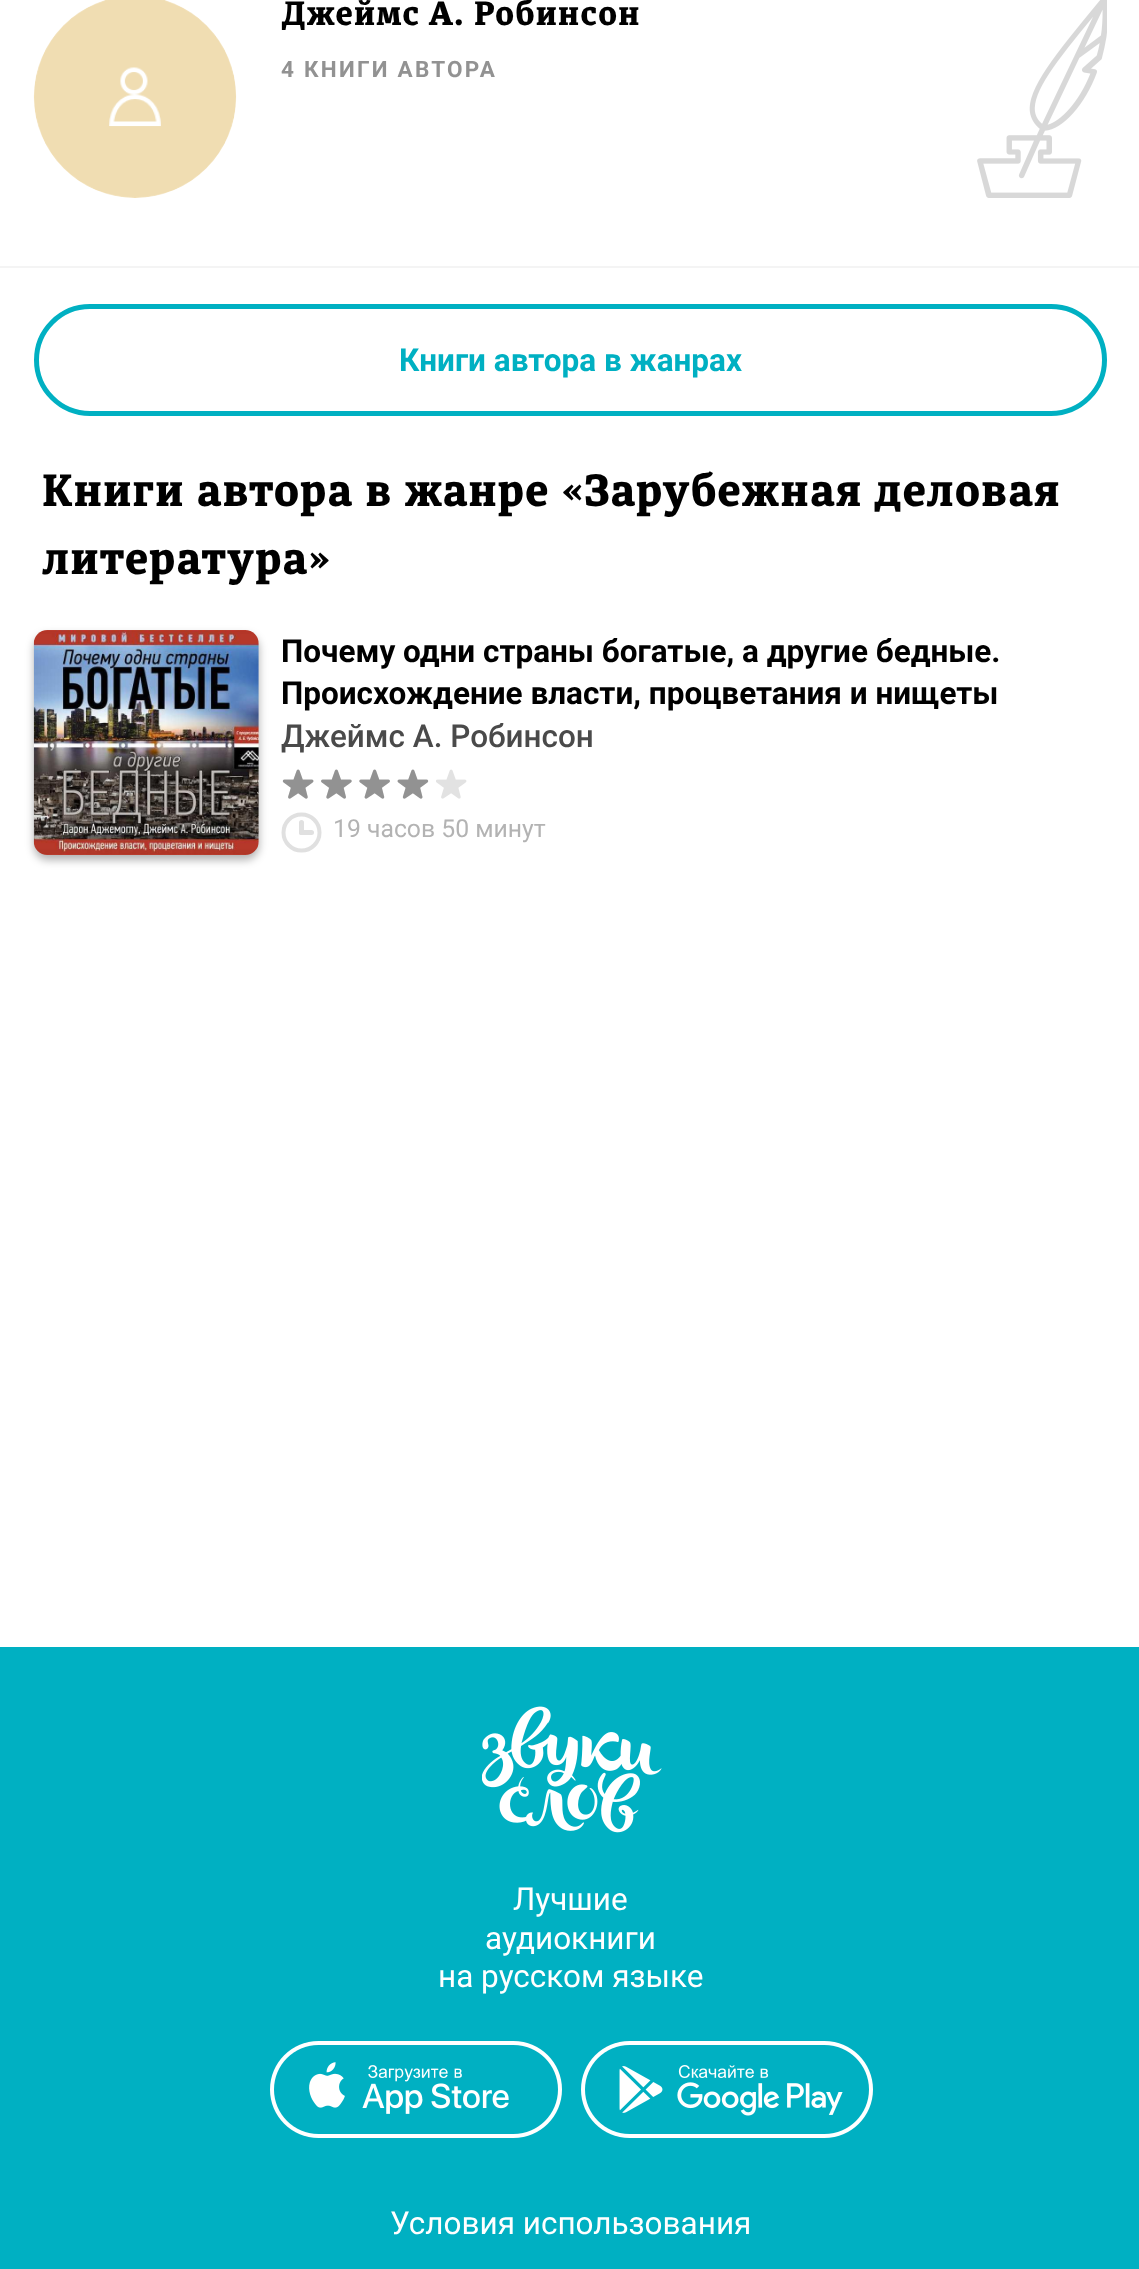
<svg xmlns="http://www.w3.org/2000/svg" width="1139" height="2269">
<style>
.a{font:800 33.75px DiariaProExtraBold;letter-spacing:1.35px;fill:#000}
.b{font:bold 22.5px Roboto;letter-spacing:2.25px;fill:#929292}
.c{font:bold 31.5px Roboto;fill:#00b0c2}
.d{font:800 45px DiariaProExtraBold;letter-spacing:1.35px;fill:#000}
.e{font:bold 31.5px Roboto;fill:#000}
.f{font:500 31.5px Roboto;fill:#4a4a4a}
.g{font:24.75px Roboto;fill:#b3b3b3}
.h{font:31.5px Roboto;fill:#fff}
</style>
<rect width="100%" height="100%" fill="#fff"/>
<path fill="#f4f4f4" d="M0 266h1139v2H0z"/>
<image href="1.png" x="33" y="0" width="204" height="198"/>
<image href="2.png" x="977" y="0" width="130" height="198"/>
<rect fill="none" stroke="#00b0c2" stroke-width="5" x="36.5" y="306.5" width="1068" height="107" rx="53.5"/>
<rect fill="#0000004d" filter="blur(4.5px)" x="34" y="635" width="225" height="225" rx="14"/>
<image href="3.png" x="33" y="630" width="226" height="225"/>
<image href="8.png" x="283" y="769" width="31" height="30"/>
<image href="4.png" x="282" y="769" width="32" height="30"/>
<image href="9.png" x="321" y="769" width="31" height="30"/>
<image href="5.png" x="321" y="769" width="31" height="30"/>
<image href="10.png" x="359" y="769" width="31" height="30"/>
<image href="6.png" x="359" y="769" width="31" height="30"/>
<image href="11.png" x="397" y="769" width="31" height="30"/>
<image href="7.png" x="397" y="769" width="32" height="30"/>
<image href="8.png" x="436" y="769" width="31" height="30"/>
<path fill="none" stroke="#e0e0e0" stroke-width="4" d="M319.5 832.5c0 10-8 18-18 18c-10 0-18-8-18-18c0-10 8-18 18-18c10 0 18 8 18 18z"/>
<rect fill="#e0e0e0" x="299" y="820" width="5" height="15" rx="2.5"/>
<rect fill="#e0e0e0" x="299" y="830" width="15" height="5" rx="2.5"/>
<path fill="#00b0c2" d="M0 1647h1139v622H0z"/>
<image href="12.png" x="482" y="1706" width="180" height="127"/>
<image href="13.png" x="270" y="2041" width="292" height="97"/>
<image href="14.png" x="581" y="2041" width="292" height="97"/>
<text class="a" x="281" y="25">Джеймс А. Робинсон</text>
<text class="b" x="281" y="77">4 КНИГИ АВТОРА</text>
<text class="c" x="399" y="371">Книги автора в жанрах</text>
<text class="d" x="42" y="506">Книги автора в жанре «Зарубежная деловая</text>
<text class="d" x="42" y="574">литература»</text>
<text class="e" x="281" y="662">Почему одни страны богатые, а другие бедные.</text>
<text class="e" x="281" y="704">Происхождение власти, процветания и нищеты</text>
<text class="f" x="281" y="747">Джеймс А. Робинсон</text>
<text class="g" x="333" y="837">19 часов 50 минут</text>
<text class="h" x="513" y="1910">Лучшие</text>
<text class="h" x="485" y="1949">аудиокниги</text>
<text class="h" x="438" y="1987">на русском языке</text>
<text class="h" x="390" y="2234">Условия использования</text>
</svg>
